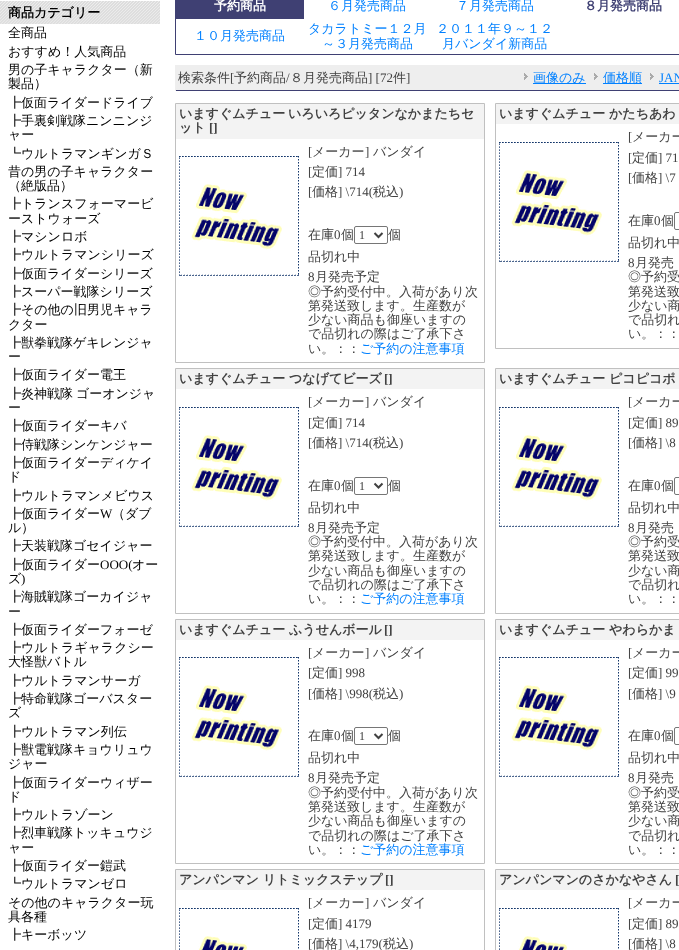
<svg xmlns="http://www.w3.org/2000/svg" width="679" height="950">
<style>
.a{font:bold 13px WenQuanYi Zen Hei;fill:#000}
.b{font:500 13px WenQuanYi Zen Hei;fill:#000}
.c{font:13px Liberation Serif;fill:#000}
.d{font:bold 13px WenQuanYi Zen Hei;fill:#fff}
.e{font:500 13px WenQuanYi Zen Hei;fill:#0080ff}
.f{font:bold 13px WenQuanYi Zen Hei;fill:#3f4073}
.g{font:500 13px WenQuanYi Zen Hei;fill:#414141}
.h{font:13px Liberation Serif;fill:#414141}
.i{font:13px Liberation Serif;fill:#0080ff}
.j{font:bold 13px WenQuanYi Zen Hei;fill:#414141}
.k{font:bold 13px Liberation Serif;fill:#414141}
.l{font:12px Liberation Serif;fill:#414141}
</style>
<rect width="100%" height="100%" fill="#fff"/>
<path fill="#ddd" d="M0 1h160v23H0z"/>
<image href="1.png" x="0" y="1" width="160" height="23"/>
<path fill="none" stroke="#3f4073" d="M175.5 -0.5h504v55H175.5z"/>
<path fill="#3f4073" d="M176 0h128v19H176z"/>
<path fill="#eee" d="M176 65h503v25H176z"/>
<path fill="#3f4073" d="M175 90h504v1H175z"/>
<path fill="#eee" d="M175 65h1v26H175z"/>
<image href="2.png" x="524" y="73" width="4" height="7"/>
<path fill="#0080ff" d="M533 83h53v1H533z"/>
<image href="2.png" x="594" y="73" width="4" height="7"/>
<path fill="#0080ff" d="M603 83h39v1H603z"/>
<image href="2.png" x="650" y="73" width="4" height="7"/>
<path fill="#0080ff" d="M659 83h20v1H659z"/>
<path fill="none" stroke="#c0c0c0" d="M175.5 103.5h309v259H175.5z"/>
<path fill="#f3f3f3" d="M176 104h308v35H176z"/>
<image href="3.png" x="179" y="156" width="120" height="120"/>
<rect fill="none" stroke="#767676" x="354.5" y="226.5" width="33" height="17" rx="1.5"/>
<path fill="none" stroke="#414141" stroke-width="2" d="M374.5 233l4 4l4-4"/>
<path fill="none" stroke="#c0c0c0" d="M495.5 103.5h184v245H495.5z"/>
<path fill="#f3f3f3" d="M496 104h183v20H496z"/>
<image href="3.png" x="499" y="142" width="120" height="120"/>
<rect fill="none" stroke="#767676" x="674.5" y="212.5" width="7" height="17" rx="1.5"/>
<path fill="none" stroke="#c0c0c0" d="M175.5 368.5h309v245H175.5z"/>
<path fill="#f3f3f3" d="M176 369h308v20H176z"/>
<image href="3.png" x="179" y="407" width="120" height="120"/>
<rect fill="none" stroke="#767676" x="354.5" y="477.5" width="33" height="17" rx="1.5"/>
<path fill="none" stroke="#414141" stroke-width="2" d="M374.5 483.5l4 4l4-4"/>
<path fill="none" stroke="#c0c0c0" d="M495.5 368.5h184v245H495.5z"/>
<path fill="#f3f3f3" d="M496 369h183v20H496z"/>
<image href="3.png" x="499" y="407" width="120" height="120"/>
<rect fill="none" stroke="#767676" x="674.5" y="477.5" width="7" height="17" rx="1.5"/>
<path fill="none" stroke="#c0c0c0" d="M175.5 619.5h309v244H175.5z"/>
<path fill="#f3f3f3" d="M176 620h308v20H176z"/>
<image href="3.png" x="179" y="657" width="120" height="120"/>
<rect fill="none" stroke="#767676" x="354.5" y="727.5" width="33" height="17" rx="1.5"/>
<path fill="none" stroke="#414141" stroke-width="2" d="M374.5 734l4 4l4-4"/>
<path fill="none" stroke="#c0c0c0" d="M495.5 619.5h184v244H495.5z"/>
<path fill="#f3f3f3" d="M496 620h183v20H496z"/>
<image href="3.png" x="499" y="657" width="120" height="120"/>
<rect fill="none" stroke="#767676" x="674.5" y="727.5" width="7" height="17" rx="1.5"/>
<path fill="none" stroke="#c0c0c0" d="M175.5 869.5h309v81H175.5z"/>
<path fill="#f3f3f3" d="M176 870h308v20H176z"/>
<image href="4.png" x="179" y="908" width="120" height="42"/>
<path fill="none" stroke="#c0c0c0" d="M495.5 869.5h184v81H495.5z"/>
<path fill="#f3f3f3" d="M496 870h183v20H496z"/>
<image href="4.png" x="499" y="908" width="120" height="42"/>
<text class="a" x="8" y="17">商品カテゴリー</text>
<text class="b" x="8" y="37">全商品</text>
<text class="b" x="8" y="56">おすすめ！人気商品</text>
<text class="b" x="8" y="74">男の子キャラクター（新</text>
<text class="b" x="8" y="88">製品）</text>
<text class="b" x="8" y="107">┣仮面ライダードライブ</text>
<text class="b" x="8" y="125">┣手裏剣戦隊ニンニンジ</text>
<text class="b" x="8" y="139">ャー</text>
<text class="b" x="8" y="158">┗ウルトラマンギンガＳ</text>
<text class="b" x="8" y="176">昔の男の子キャラクター</text>
<text class="b" x="8" y="190">（絶版品）</text>
<text class="b" x="8" y="208">┣トランスフォーマービ</text>
<text class="b" x="8" y="223">ーストウォーズ</text>
<text class="b" x="8" y="241">┣マシンロボ</text>
<text class="b" x="8" y="259">┣ウルトラマンシリーズ</text>
<text class="b" x="8" y="278">┣仮面ライダーシリーズ</text>
<text class="b" x="8" y="296">┣スーパー戦隊シリーズ</text>
<text class="b" x="8" y="314">┣その他の旧男児キャラ</text>
<text class="b" x="8" y="329">クター</text>
<text class="b" x="8" y="347">┣獣拳戦隊ゲキレンジャ</text>
<text class="b" x="8" y="361">ー</text>
<text class="b" x="8" y="379">┣仮面ライダー電王</text>
<text class="b" x="8" y="398" word-spacing="-1">┣炎神戦隊 ゴーオンジャ</text>
<text class="b" x="8" y="412">ー</text>
<text class="b" x="8" y="430">┣仮面ライダーキバ</text>
<text class="b" x="8" y="449">┣侍戦隊シンケンジャー</text>
<text class="b" x="8" y="467">┣仮面ライダーディケイ</text>
<text class="b" x="8" y="481">ド</text>
<text class="b" x="8" y="500">┣ウルトラマンメビウス</text>
<text class="b" x="8" y="518">┣仮面ライダー</text>
<text class="c" x="100" y="518">W</text>
<text class="b" x="112" y="518">（ダブ</text>
<text class="b" x="8" y="532">ル）</text>
<text class="b" x="8" y="550">┣天装戦隊ゴセイジャー</text>
<text class="b" x="8" y="569">┣仮面ライダー</text>
<text class="c" x="100" y="569">OOO(</text>
<text class="b" x="132" y="569">オー</text>
<text class="b" x="8" y="583">ズ</text>
<text class="c" x="21" y="583">)</text>
<text class="b" x="8" y="601">┣海賊戦隊ゴーカイジャ</text>
<text class="b" x="8" y="616">ー</text>
<text class="b" x="8" y="634">┣仮面ライダーフォーゼ</text>
<text class="b" x="8" y="652">┣ウルトラギャラクシー</text>
<text class="b" x="8" y="666">大怪獣バトル</text>
<text class="b" x="8" y="685">┣ウルトラマンサーガ</text>
<text class="b" x="8" y="703">┣特命戦隊ゴーバスター</text>
<text class="b" x="8" y="717">ズ</text>
<text class="b" x="8" y="736">┣ウルトラマン列伝</text>
<text class="b" x="8" y="754">┣獣電戦隊キョウリュウ</text>
<text class="b" x="8" y="768">ジャー</text>
<text class="b" x="8" y="787">┣仮面ライダーウィザー</text>
<text class="b" x="8" y="801">ド</text>
<text class="b" x="8" y="819">┣ウルトラゾーン</text>
<text class="b" x="8" y="837">┣烈車戦隊トッキュウジ</text>
<text class="b" x="8" y="852">ャー</text>
<text class="b" x="8" y="870">┣仮面ライダー鎧武</text>
<text class="b" x="8" y="888">┗ウルトラマンゼロ</text>
<text class="b" x="8" y="907">その他のキャラクター玩</text>
<text class="b" x="8" y="921">具各種</text>
<text class="b" x="8" y="939">┣キーボッツ</text>
<text class="d" x="214" y="10">予約商品</text>
<text class="e" x="328" y="10">６月発売商品</text>
<text class="e" x="456" y="10">７月発売商品</text>
<text class="f" x="584" y="10">８月発売商品</text>
<text class="e" x="194" y="40">１０月発売商品</text>
<text class="e" x="308" y="33">タカラトミー１２月</text>
<text class="e" x="322" y="48">～３月発売商品</text>
<text class="e" x="436" y="33">２０１１年９～１２</text>
<text class="e" x="442" y="48">月バンダイ新商品</text>
<text class="g" x="178" y="82">検索条件</text>
<text class="h" x="230" y="82">[</text>
<text class="g" x="234" y="82">予約商品 ８月発売商品</text>
<text class="h" x="286" y="82">/</text>
<text class="h" x="368" y="82">] [72</text>
<text class="g" x="393" y="82">件</text>
<text class="h" x="406" y="82">]</text>
<text class="e" x="533" y="82">画像のみ</text>
<text class="e" x="603" y="82">価格順</text>
<text class="i" x="659" y="82">JAN</text>
<text class="j" x="179" y="118" word-spacing="-1">いますぐムチュー いろいろピッタンなかまたちセ</text>
<text class="j" x="179" y="132">ット</text>
<text class="k" x="209" y="132">[]</text>
<text class="h" x="308" y="156">[</text>
<text class="g" x="312" y="156">メーカー</text>
<text class="h" x="365" y="156">]</text>
<text class="g" x="373" y="156">バンダイ</text>
<text class="h" x="308" y="176">[</text>
<text class="g" x="312" y="176">定価</text>
<text class="h" x="338" y="176">] 714</text>
<text class="h" x="308" y="196">[</text>
<text class="g" x="312" y="196">価格</text>
<text class="h" x="338" y="196">] \714(</text>
<text class="g" x="373" y="196">税込</text>
<text class="h" x="399" y="196">)</text>
<text class="g" x="308" y="239">在庫</text>
<text class="h" x="334" y="239">0</text>
<text class="g" x="341" y="239">個</text>
<text class="l" x="359" y="239">1</text>
<text class="g" x="388" y="239">個</text>
<text class="g" x="308" y="261">品切れ中</text>
<text class="h" x="308" y="281">8</text>
<text class="g" x="315" y="281">月発売予定</text>
<text class="g" x="308" y="296">◎予約受付中。入荷があり次</text>
<text class="g" x="308" y="310">第発送致します。生産数が</text>
<text class="g" x="308" y="324">少ない商品も御座いますの</text>
<text class="g" x="308" y="338">で品切れの際はご了承下さ</text>
<text class="g" x="308" y="353">い。：：</text>
<text class="e" x="360" y="353">ご予約の注意事項</text>
<text class="j" x="499" y="118">いますぐムチュー かたちあわ</text>
<text class="h" x="628" y="141">[</text>
<text class="g" x="632" y="141">メーカー</text>
<text class="h" x="628" y="162">[</text>
<text class="g" x="632" y="162">定価</text>
<text class="h" x="658" y="162">] 71</text>
<text class="h" x="628" y="182">[</text>
<text class="g" x="632" y="182">価格</text>
<text class="h" x="658" y="182">] \7</text>
<text class="g" x="628" y="225">在庫</text>
<text class="h" x="654" y="225">0</text>
<text class="g" x="661" y="225">個</text>
<text class="g" x="628" y="247">品切れ中</text>
<text class="h" x="628" y="267">8</text>
<text class="g" x="635" y="267">月発売</text>
<text class="g" x="628" y="281">◎予約受</text>
<text class="g" x="628" y="296">第発送致</text>
<text class="g" x="628" y="310">少ない商</text>
<text class="g" x="628" y="324">で品切れ</text>
<text class="g" x="628" y="338">い。：：</text>
<text class="j" x="179" y="383">いますぐムチュー つなげてビーズ</text>
<text class="k" x="384" y="383">[]</text>
<text class="h" x="308" y="406">[</text>
<text class="g" x="312" y="406">メーカー</text>
<text class="h" x="365" y="406">]</text>
<text class="g" x="373" y="406">バンダイ</text>
<text class="h" x="308" y="427">[</text>
<text class="g" x="312" y="427">定価</text>
<text class="h" x="338" y="427">] 714</text>
<text class="h" x="308" y="447">[</text>
<text class="g" x="312" y="447">価格</text>
<text class="h" x="338" y="447">] \714(</text>
<text class="g" x="373" y="447">税込</text>
<text class="h" x="399" y="447">)</text>
<text class="g" x="308" y="490">在庫</text>
<text class="h" x="334" y="490">0</text>
<text class="g" x="341" y="490">個</text>
<text class="l" x="359" y="490">1</text>
<text class="g" x="388" y="490">個</text>
<text class="g" x="308" y="512">品切れ中</text>
<text class="h" x="308" y="532">8</text>
<text class="g" x="315" y="532">月発売予定</text>
<text class="g" x="308" y="546">◎予約受付中。入荷があり次</text>
<text class="g" x="308" y="560">第発送致します。生産数が</text>
<text class="g" x="308" y="575">少ない商品も御座いますの</text>
<text class="g" x="308" y="589">で品切れの際はご了承下さ</text>
<text class="g" x="308" y="603">い。：：</text>
<text class="e" x="360" y="603">ご予約の注意事項</text>
<text class="j" x="499" y="383">いますぐムチュー ピコピコポ</text>
<text class="h" x="628" y="406">[</text>
<text class="g" x="632" y="406">メーカー</text>
<text class="h" x="628" y="427">[</text>
<text class="g" x="632" y="427">定価</text>
<text class="h" x="658" y="427">] 89</text>
<text class="h" x="628" y="447">[</text>
<text class="g" x="632" y="447">価格</text>
<text class="h" x="658" y="447">] \8</text>
<text class="g" x="628" y="490">在庫</text>
<text class="h" x="654" y="490">0</text>
<text class="g" x="661" y="490">個</text>
<text class="g" x="628" y="512">品切れ中</text>
<text class="h" x="628" y="532">8</text>
<text class="g" x="635" y="532">月発売</text>
<text class="g" x="628" y="546">◎予約受</text>
<text class="g" x="628" y="560">第発送致</text>
<text class="g" x="628" y="575">少ない商</text>
<text class="g" x="628" y="589">で品切れ</text>
<text class="g" x="628" y="603">い。：：</text>
<text class="j" x="179" y="634">いますぐムチュー ふうせんボール</text>
<text class="k" x="384" y="634">[]</text>
<text class="h" x="308" y="657">[</text>
<text class="g" x="312" y="657">メーカー</text>
<text class="h" x="365" y="657">]</text>
<text class="g" x="373" y="657">バンダイ</text>
<text class="h" x="308" y="677">[</text>
<text class="g" x="312" y="677">定価</text>
<text class="h" x="338" y="677">] 998</text>
<text class="h" x="308" y="698">[</text>
<text class="g" x="312" y="698">価格</text>
<text class="h" x="338" y="698">] \998(</text>
<text class="g" x="373" y="698">税込</text>
<text class="h" x="399" y="698">)</text>
<text class="g" x="308" y="740">在庫</text>
<text class="h" x="334" y="740">0</text>
<text class="g" x="341" y="740">個</text>
<text class="l" x="359" y="740">1</text>
<text class="g" x="388" y="740">個</text>
<text class="g" x="308" y="762">品切れ中</text>
<text class="h" x="308" y="782">8</text>
<text class="g" x="315" y="782">月発売予定</text>
<text class="g" x="308" y="797">◎予約受付中。入荷があり次</text>
<text class="g" x="308" y="811">第発送致します。生産数が</text>
<text class="g" x="308" y="825">少ない商品も御座いますの</text>
<text class="g" x="308" y="840">で品切れの際はご了承下さ</text>
<text class="g" x="308" y="854">い。：：</text>
<text class="e" x="360" y="854">ご予約の注意事項</text>
<text class="j" x="499" y="634">いますぐムチュー やわらかま</text>
<text class="h" x="628" y="657">[</text>
<text class="g" x="632" y="657">メーカー</text>
<text class="h" x="628" y="677">[</text>
<text class="g" x="632" y="677">定価</text>
<text class="h" x="658" y="677">] 99</text>
<text class="h" x="628" y="698">[</text>
<text class="g" x="632" y="698">価格</text>
<text class="h" x="658" y="698">] \9</text>
<text class="g" x="628" y="740">在庫</text>
<text class="h" x="654" y="740">0</text>
<text class="g" x="661" y="740">個</text>
<text class="g" x="628" y="762">品切れ中</text>
<text class="h" x="628" y="782">8</text>
<text class="g" x="635" y="782">月発売</text>
<text class="g" x="628" y="797">◎予約受</text>
<text class="g" x="628" y="811">第発送致</text>
<text class="g" x="628" y="825">少ない商</text>
<text class="g" x="628" y="840">で品切れ</text>
<text class="g" x="628" y="854">い。：：</text>
<text class="j" x="179" y="884">アンパンマン リトミックステップ</text>
<text class="k" x="385" y="884">[]</text>
<text class="h" x="308" y="907">[</text>
<text class="g" x="312" y="907">メーカー</text>
<text class="h" x="365" y="907">]</text>
<text class="g" x="373" y="907">バンダイ</text>
<text class="h" x="308" y="928">[</text>
<text class="g" x="312" y="928">定価</text>
<text class="h" x="338" y="928">] 4179</text>
<text class="h" x="308" y="948">[</text>
<text class="g" x="312" y="948">価格</text>
<text class="h" x="338" y="948">] \4,179(</text>
<text class="g" x="383" y="948">税込</text>
<text class="h" x="409" y="948">)</text>
<text class="j" x="499" y="884">アンパンマンのさかなやさん</text>
<text class="k" x="675" y="884">[</text>
<text class="h" x="628" y="907">[</text>
<text class="g" x="632" y="907">メーカー</text>
<text class="h" x="628" y="928">[</text>
<text class="g" x="632" y="928">定価</text>
<text class="h" x="658" y="928">] 89</text>
<text class="h" x="628" y="948">[</text>
<text class="g" x="632" y="948">価格</text>
<text class="h" x="658" y="948">] \8</text>
</svg>
